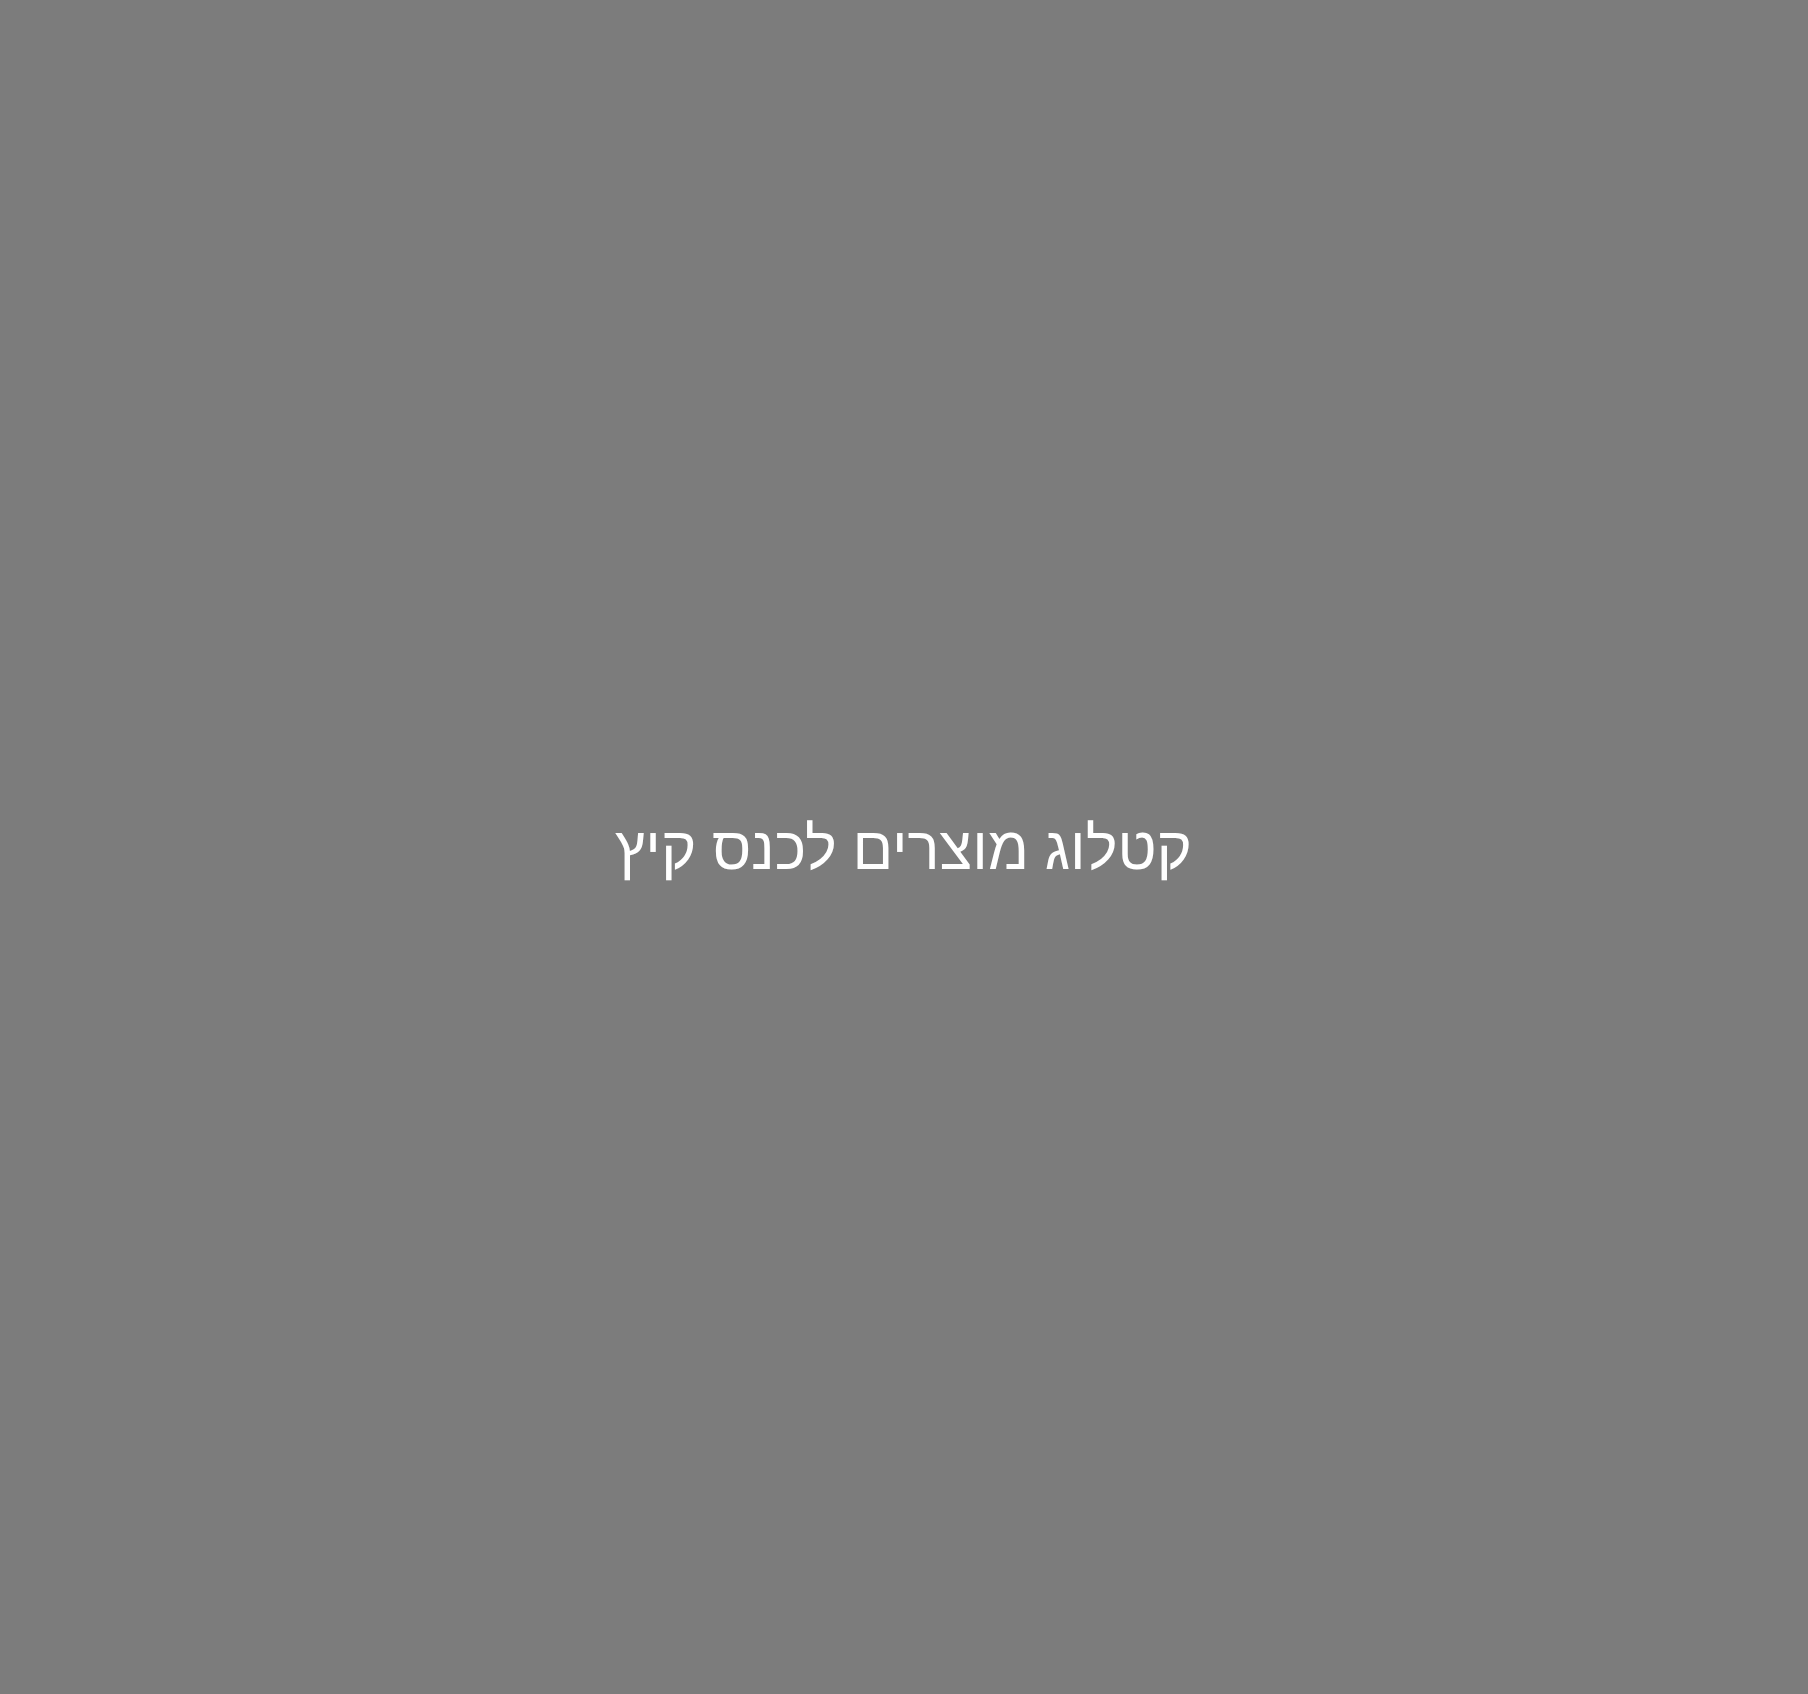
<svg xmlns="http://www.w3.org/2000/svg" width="1808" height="1694">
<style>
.a{font:60px Liberation Sans;direction:rtl;fill:#fff}
</style>
<rect width="100%" height="100%" fill="#7c7c7c"/>
<text class="a" x="1192" y="869" word-spacing="-1">קטלוג מוצרים לכנס קיץ</text>
</svg>
